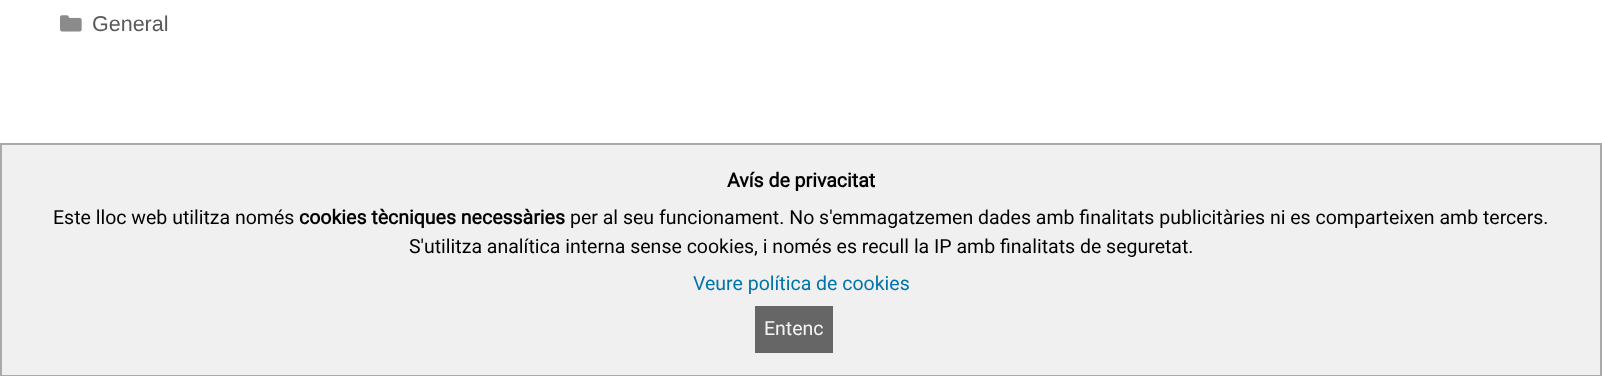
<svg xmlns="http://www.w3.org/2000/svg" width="1602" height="376">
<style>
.a{font:21.5px Liberation Sans;fill:#595959}
.b{font:bold 19.5px Roboto;fill:#000}
.c{font:19.5px Roboto;fill:#000}
.d{font:19.5px Roboto;fill:#0073aa}
.e{font:19.5px Roboto;fill:#f5f5f5}
</style>
<rect width="100%" height="100%" fill="#fff"/>
<image href="1.png" x="60" y="15" width="22" height="17"/>
<path fill="#f0f0f0" stroke="#a9a9a9" stroke-width="2" d="M1 144h1600v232H1z"/>
<path fill="#666" d="M755 306h78v47H755z"/>
<text class="a" x="92" y="31">General</text>
<text class="b" x="727" y="187">Avís de privacitat</text>
<text class="c" x="53" y="224">Este lloc web utilitza només</text>
<text class="b" x="299" y="224">cookies tècniques necessàries</text>
<text class="c" x="570" y="224">per al seu funcionament. No s'emmagatzemen dades amb finalitats publicitàries ni es comparteixen amb tercers.</text>
<text class="c" x="409" y="253">S'utilitza analítica interna sense cookies, i només es recull la IP amb finalitats de seguretat.</text>
<text class="d" x="693" y="290">Veure política de cookies</text>
<text class="e" x="764" y="335">Entenc</text>
</svg>
